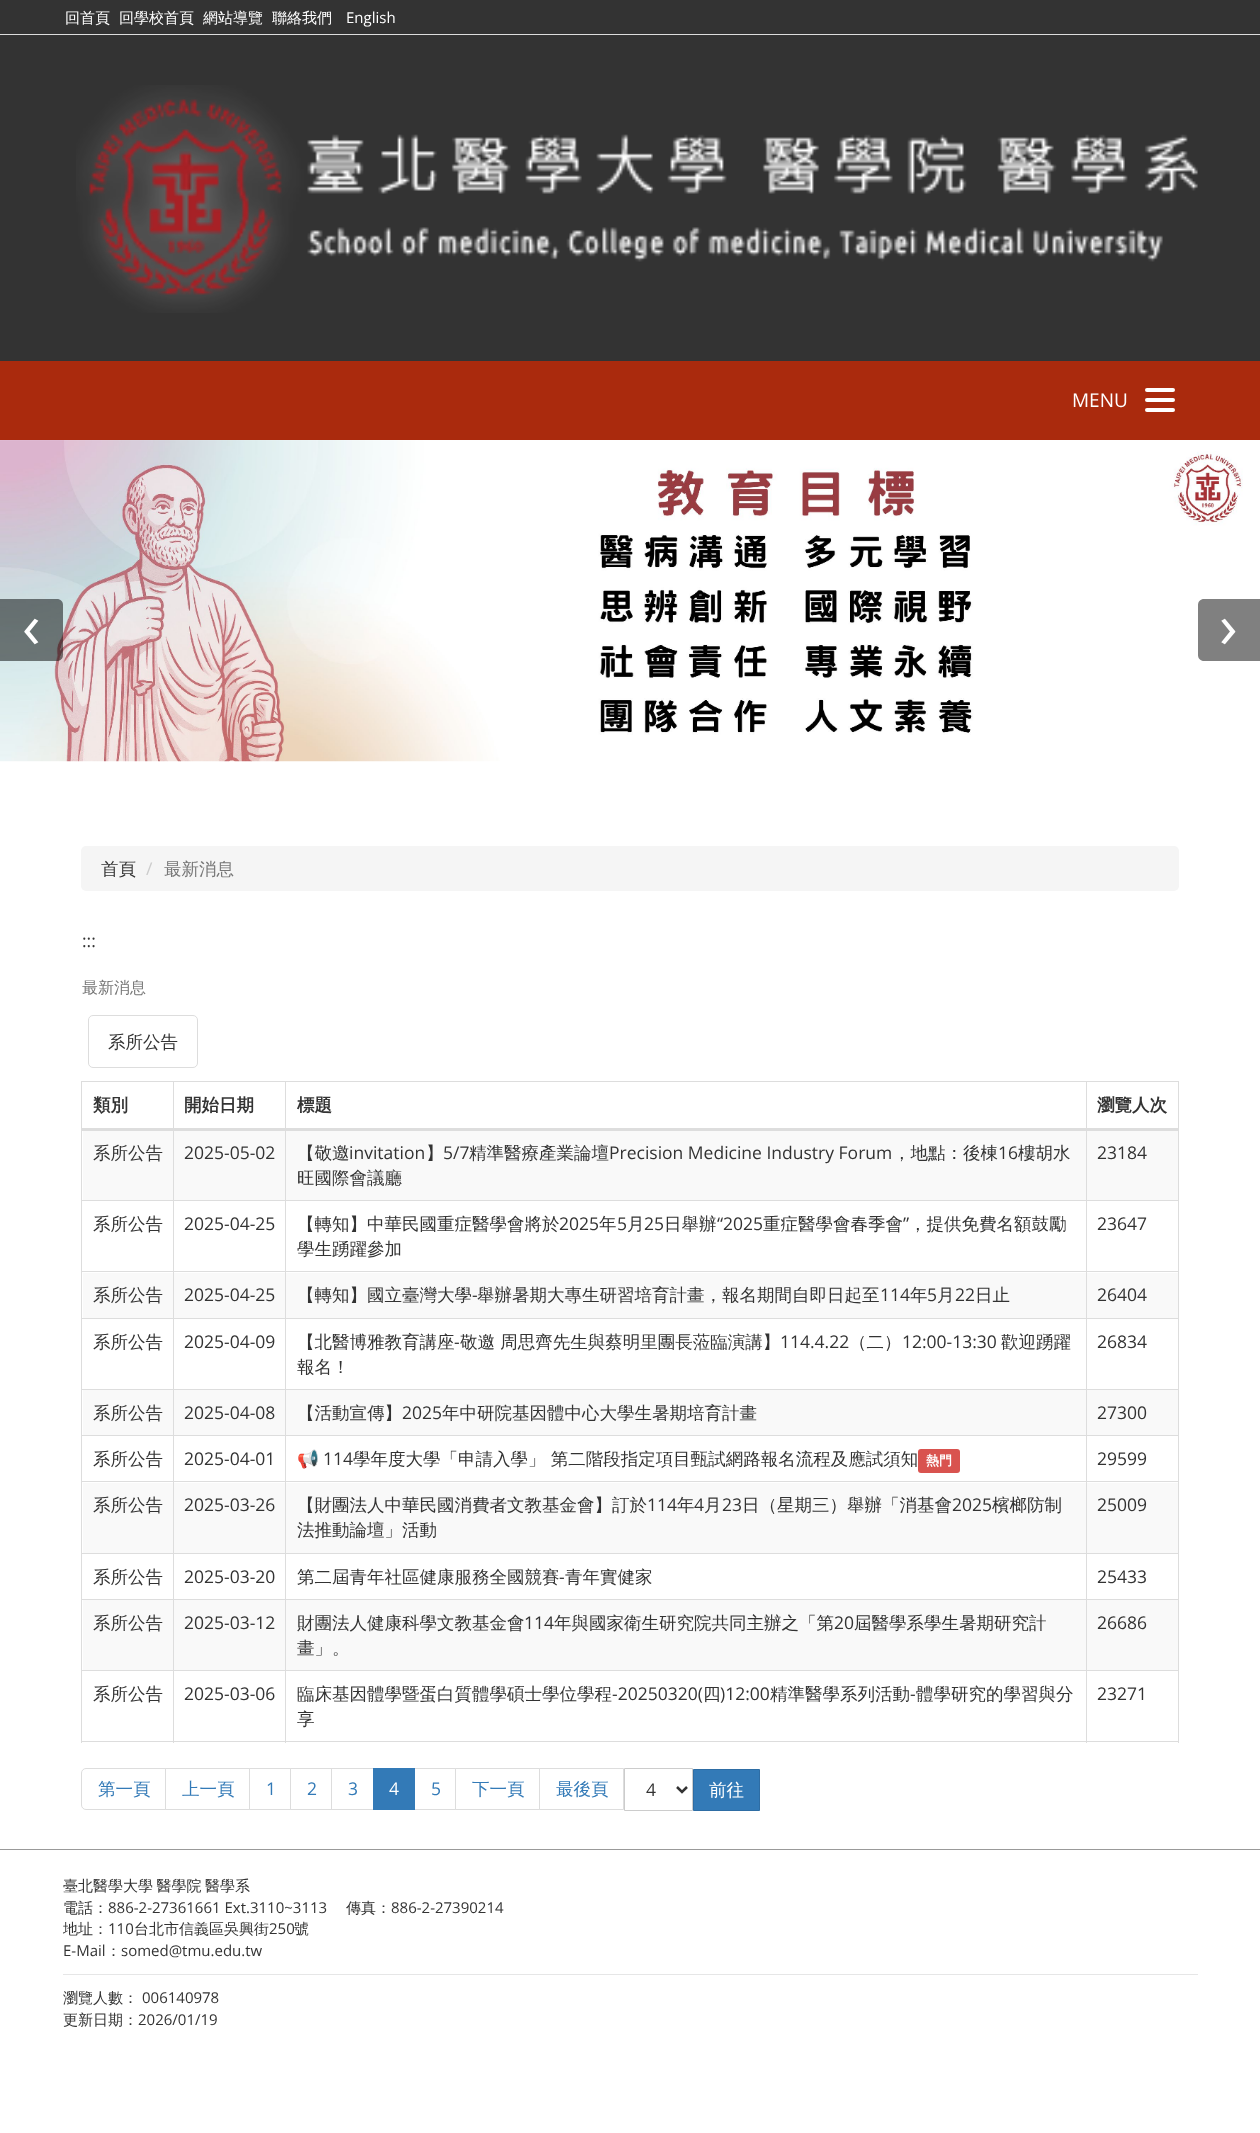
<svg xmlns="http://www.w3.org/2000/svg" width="1260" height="2133">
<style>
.a{font:500 15px WenQuanYi Zen Hei;fill:#fff}
.b{font:15px Open Sans;fill:#fff}
.c{font:19px Open Sans;fill:#fff}
.d{font:62px Open Sans;fill:#fff}
.e{font:500 17.5px WenQuanYi Zen Hei;fill:#333}
.f{font:17.5px Open Sans;fill:#ccc}
.g{font:500 17.5px WenQuanYi Zen Hei;fill:#777}
.h{font:17.5px Open Sans;fill:#333}
.i{font:500 16px WenQuanYi Zen Hei;fill:#777}
.j{font:bold 17.5px WenQuanYi Zen Hei;fill:#333}
.k{font:17.5px Noto Color Emoji;fill:#333}
.l{font:bold 13px WenQuanYi Zen Hei;fill:#fff}
.m{font:500 17.5px WenQuanYi Zen Hei;fill:#337ab7}
.n{font:17.5px Open Sans;fill:#337ab7}
.o{font:17.5px Open Sans;fill:#fff}
.p{font:500 17.5px WenQuanYi Zen Hei;fill:#fff}
.q{font:500 15px WenQuanYi Zen Hei;fill:#333}
.r{font:15px Open Sans;fill:#333}
</style>
<rect width="100%" height="100%" fill="#fff"/>
<path fill="#333" d="M0 0h1260v361H0z"/>
<path fill="#ddd" d="M0 34h1260v1H0z"/>
<image href="1.png" x="76" y="85" width="1122" height="228"/>
<path fill="#aa2a0d" d="M0 361h1260v79H0z"/>
<rect fill="#fff" x="1145" y="388" width="30" height="4" rx="2"/>
<rect fill="#fff" x="1145" y="398" width="30" height="4" rx="2"/>
<rect fill="#fff" x="1145" y="408" width="30" height="4" rx="2"/>
<image href="2.png" x="0" y="440" width="1243" height="322"/>
<path fill="#00000080" d="M0 599h57c3.5 0 6 2.5 6 6v50c0 3.5-2.5 6-6 6h-57z"/>
<path fill="#808080" d="M1204 599h56v62h-56c-3.5 0-6-2.5-6-6v-50c0-3.5 2.5-6 6-6z"/>
<rect fill="#f5f5f5" x="81" y="846" width="1098" height="45" rx="5"/>
<rect fill="none" stroke="#ddd" x="88.5" y="1015.5" width="109" height="52" rx="4.5"/>
<path fill="#ddd" d="M81 1081h1098v1H81z"/>
<path fill="#ddd" d="M1178 1081h1v662H1178z"/>
<path fill="#ddd" d="M81 1741h1098v1H81z"/>
<path fill="#ddd" d="M81 1081h1v662H81z"/>
<path fill="#f9f9f9" d="M83 1131h1095v69H83z"/>
<path fill="#ddd" d="M1086 1200h93v1H1086z"/>
<path fill="#ddd" d="M1086 1271h93v1H1086z"/>
<path fill="#f9f9f9" d="M83 1273h1095v45H83z"/>
<path fill="#ddd" d="M1086 1318h93v1H1086z"/>
<path fill="#ddd" d="M1086 1389h93v1H1086z"/>
<path fill="#f9f9f9" d="M83 1390h1095v45H83z"/>
<path fill="#ddd" d="M1086 1435h93v1H1086z"/>
<path fill="#ddd" d="M1086 1481h93v1H1086z"/>
<path fill="#f9f9f9" d="M83 1483h1095v70H83z"/>
<path fill="#ddd" d="M1086 1553h93v1H1086z"/>
<path fill="#ddd" d="M1086 1599h93v1H1086z"/>
<path fill="#f9f9f9" d="M83 1600h1095v70H83z"/>
<path fill="#ddd" d="M1086 1670h93v1H1086z"/>
<path fill="#ddd" d="M1086 1670h1v73H1086z"/>
<path fill="#ddd" d="M285 1670h803v1H285z"/>
<path fill="#ddd" d="M1086 1599h1v72H1086z"/>
<path fill="#ddd" d="M285 1599h803v1H285z"/>
<path fill="#ddd" d="M1086 1553h1v47H1086z"/>
<path fill="#ddd" d="M285 1553h803v1H285z"/>
<path fill="#ddd" d="M1086 1481h1v73H1086z"/>
<path fill="#ddd" d="M285 1481h803v1H285z"/>
<path fill="#ddd" d="M1086 1435h1v48H1086z"/>
<path fill="#ddd" d="M285 1435h803v1H285z"/>
<path fill="#ddd" d="M1086 1389h1v47H1086z"/>
<path fill="#ddd" d="M285 1389h803v1H285z"/>
<path fill="#ddd" d="M1086 1318h1v72H1086z"/>
<path fill="#ddd" d="M285 1318h803v1H285z"/>
<path fill="#ddd" d="M1086 1271h1v48H1086z"/>
<path fill="#ddd" d="M285 1271h803v1H285z"/>
<path fill="#ddd" d="M1086 1200h1v73H1086z"/>
<path fill="#ddd" d="M285 1200h803v1H285z"/>
<path fill="#ddd" d="M285 1670h1v73H285z"/>
<path fill="#ddd" d="M173 1670h113v1H173z"/>
<path fill="#ddd" d="M285 1599h1v72H285z"/>
<path fill="#ddd" d="M173 1599h113v1H173z"/>
<path fill="#ddd" d="M285 1553h1v47H285z"/>
<path fill="#ddd" d="M173 1553h113v1H173z"/>
<path fill="#ddd" d="M285 1481h1v73H285z"/>
<path fill="#ddd" d="M173 1481h113v1H173z"/>
<path fill="#ddd" d="M285 1435h1v48H285z"/>
<path fill="#ddd" d="M173 1435h113v1H173z"/>
<path fill="#ddd" d="M285 1389h1v47H285z"/>
<path fill="#ddd" d="M173 1389h113v1H173z"/>
<path fill="#ddd" d="M285 1318h1v72H285z"/>
<path fill="#ddd" d="M173 1318h113v1H173z"/>
<path fill="#ddd" d="M285 1271h1v48H285z"/>
<path fill="#ddd" d="M173 1271h113v1H173z"/>
<path fill="#ddd" d="M285 1200h1v73H285z"/>
<path fill="#ddd" d="M173 1200h113v1H173z"/>
<path fill="#ddd" d="M173 1670h1v73H173z"/>
<path fill="#ddd" d="M81 1670h93v1H81z"/>
<path fill="#ddd" d="M173 1599h1v72H173z"/>
<path fill="#ddd" d="M81 1599h93v1H81z"/>
<path fill="#ddd" d="M173 1553h1v47H173z"/>
<path fill="#ddd" d="M81 1553h93v1H81z"/>
<path fill="#ddd" d="M173 1481h1v73H173z"/>
<path fill="#ddd" d="M81 1481h93v1H81z"/>
<path fill="#ddd" d="M173 1435h1v48H173z"/>
<path fill="#ddd" d="M81 1435h93v1H81z"/>
<path fill="#ddd" d="M173 1389h1v47H173z"/>
<path fill="#ddd" d="M81 1389h93v1H81z"/>
<path fill="#ddd" d="M173 1318h1v72H173z"/>
<path fill="#ddd" d="M81 1318h93v1H81z"/>
<path fill="#ddd" d="M173 1271h1v48H173z"/>
<path fill="#ddd" d="M81 1271h93v1H81z"/>
<path fill="#ddd" d="M173 1200h1v73H173z"/>
<path fill="#ddd" d="M81 1200h93v1H81z"/>
<path fill="#ddd" d="M173 1081h1v120H173z"/>
<path fill="#ddd" d="M285 1081h1v120H285z"/>
<path fill="#ddd" d="M1086 1081h1v120H1086z"/>
<path fill="#ddd" d="M81 1128h1098v3H81z"/>
<rect fill="#d9534f" x="918" y="1449" width="42" height="24" rx="3"/>
<path fill="none" stroke="#ddd" d="M86 1768.5h79.5v41h-79.5c-2.5 0-4.5-2-4.5-4.5v-32c0-2.5 2-4.5 4.5-4.5z"/>
<path fill="none" stroke="#ddd" d="M165.5 1768.5h84v41H165.5z"/>
<path fill="none" stroke="#ddd" d="M249.5 1768.5h41v41H249.5z"/>
<path fill="none" stroke="#ddd" d="M290.5 1768.5h42v41H290.5z"/>
<path fill="#fff" d="M332 1769h1v40H332z"/>
<path fill="none" stroke="#ddd" d="M331.5 1768.5h42v41H331.5z"/>
<path fill="none" stroke="#ddd" d="M414.5 1768.5h41v41H414.5z"/>
<path fill="#337ab7" d="M373 1768h42v42H373z"/>
<path fill="none" stroke="#ddd" d="M455.5 1768.5h84v41H455.5z"/>
<path fill="none" stroke="#ddd" d="M539.5 1768.5h84v41H539.5z"/>
<path fill="none" stroke="#ccc" d="M624.5 1768.5h68v42H624.5z"/>
<path fill="none" stroke="#333" stroke-width="2.5" d="M677 1787l5 5l5-5"/>
<path fill="#337ab7" stroke="#2e6da4" d="M693.5 1769.5h66v41H693.5z"/>
<path fill="#999" d="M0 1849h1260v1H0z"/>
<path fill="#e6e6e6" d="M63 1974h1135v1H63z"/>
<text class="a" x="65" y="23">回首頁</text>
<text class="a" x="119" y="23">回學校首頁</text>
<text class="a" x="203" y="23">網站導覽</text>
<text class="a" x="272" y="23">聯絡我們</text>
<text class="b" x="346" y="23">English</text>
<text class="c" x="1072" y="407">MENU</text>
<text class="d" x="22" y="648">‹</text>
<text class="d" x="1219" y="648">›</text>
<text class="e" x="101" y="875">首頁</text>
<text class="f" x="146" y="875">/</text>
<text class="g" x="164" y="875">最新消息</text>
<text class="h" x="82" y="947">:::</text>
<text class="i" x="82" y="993">最新消息</text>
<text class="e" x="108" y="1048">系所公告</text>
<text class="j" x="93" y="1111">類別</text>
<text class="j" x="184" y="1111">開始日期</text>
<text class="j" x="297" y="1111">標題</text>
<text class="j" x="1097" y="1111">瀏覽人次</text>
<text class="e" x="93" y="1159">系所公告</text>
<text class="h" x="184" y="1159">2025-05-02</text>
<text class="e" x="297" y="1159">【敬邀</text>
<text class="h" x="349" y="1159">invitation</text>
<text class="e" x="426" y="1159">】</text>
<text class="h" x="443" y="1159">5/7</text>
<text class="e" x="469" y="1159">精準醫療產業論壇</text>
<text class="h" x="609" y="1159">Precision Medicine Industry Forum</text>
<text class="e" x="893" y="1159">，地點：後棟</text>
<text class="h" x="998" y="1159">16</text>
<text class="e" x="1018" y="1159">樓胡水</text>
<text class="e" x="297" y="1184">旺國際會議廳</text>
<text class="h" x="1097" y="1159">23184</text>
<text class="e" x="93" y="1230">系所公告</text>
<text class="h" x="184" y="1230">2025-04-25</text>
<text class="e" x="297" y="1230">【轉知】中華民國重症醫學會將於</text>
<text class="h" x="559" y="1230">2025</text>
<text class="e" x="599" y="1230">年</text>
<text class="h" x="617" y="1230">5</text>
<text class="e" x="627" y="1230">月</text>
<text class="h" x="644" y="1230">25</text>
<text class="e" x="664" y="1230">日舉辦</text>
<text class="h" x="717" y="1230">“2025</text>
<text class="e" x="763" y="1230">重症醫學會春季會</text>
<text class="h" x="903" y="1230">”</text>
<text class="e" x="909" y="1230">，提供免費名額鼓勵</text>
<text class="e" x="297" y="1255">學生踴躍參加</text>
<text class="h" x="1097" y="1230">23647</text>
<text class="e" x="93" y="1301">系所公告</text>
<text class="h" x="184" y="1301">2025-04-25</text>
<text class="e" x="297" y="1301">【轉知】國立臺灣大學</text>
<text class="h" x="472" y="1301">-</text>
<text class="e" x="477" y="1301">舉辦暑期大專生研習培育計畫，報名期間自即日起至</text>
<text class="h" x="880" y="1301">114</text>
<text class="e" x="910" y="1301">年</text>
<text class="h" x="927" y="1301">5</text>
<text class="e" x="937" y="1301">月</text>
<text class="h" x="955" y="1301">22</text>
<text class="e" x="975" y="1301">日止</text>
<text class="h" x="1097" y="1301">26404</text>
<text class="e" x="93" y="1348">系所公告</text>
<text class="h" x="184" y="1348">2025-04-09</text>
<text class="e" x="297" y="1348">【北醫博雅教育講座</text>
<text class="h" x="454" y="1348">-</text>
<text class="e" x="460" y="1348">敬邀 周思齊先生與蔡明里團長蒞臨演講】</text>
<text class="h" x="780" y="1348">114.4.22</text>
<text class="e" x="849" y="1348">（二）</text>
<text class="h" x="902" y="1348">12:00-13:30</text>
<text class="e" x="1001" y="1348">歡迎踴躍</text>
<text class="e" x="297" y="1373">報名！</text>
<text class="h" x="1097" y="1348">26834</text>
<text class="e" x="93" y="1419">系所公告</text>
<text class="h" x="184" y="1419">2025-04-08</text>
<text class="e" x="297" y="1419">【活動宣傳】</text>
<text class="h" x="402" y="1419">2025</text>
<text class="e" x="442" y="1419">年中研院基因體中心大學生暑期培育計畫</text>
<text class="h" x="1097" y="1419">27300</text>
<text class="e" x="93" y="1465">系所公告</text>
<text class="h" x="184" y="1465">2025-04-01</text>
<text class="k" x="297" y="1465">📢</text>
<text class="h" x="323" y="1465">114</text>
<text class="e" x="353" y="1465">學年度大學「申請入學」 第二階段指定項目甄試網路報名流程及應試須知</text>
<text class="l" x="926" y="1465">熱門</text>
<text class="h" x="1097" y="1465">29599</text>
<text class="e" x="93" y="1511">系所公告</text>
<text class="h" x="184" y="1511">2025-03-26</text>
<text class="e" x="297" y="1511">【財團法人中華民國消費者文教基金會】訂於</text>
<text class="h" x="647" y="1511">114</text>
<text class="e" x="677" y="1511">年</text>
<text class="h" x="694" y="1511">4</text>
<text class="e" x="704" y="1511">月</text>
<text class="h" x="722" y="1511">23</text>
<text class="e" x="742" y="1511">日（星期三）舉辦「消基會</text>
<text class="h" x="952" y="1511">2025</text>
<text class="e" x="992" y="1511">檳榔防制</text>
<text class="e" x="297" y="1536">法推動論壇」活動</text>
<text class="h" x="1097" y="1511">25009</text>
<text class="e" x="93" y="1583">系所公告</text>
<text class="h" x="184" y="1583">2025-03-20</text>
<text class="e" x="297" y="1583">第二屆青年社區健康服務全國競賽</text>
<text class="h" x="559" y="1583">-</text>
<text class="e" x="565" y="1583">青年實健家</text>
<text class="h" x="1097" y="1583">25433</text>
<text class="e" x="93" y="1629">系所公告</text>
<text class="h" x="184" y="1629">2025-03-12</text>
<text class="e" x="297" y="1629">財團法人健康科學文教基金會</text>
<text class="h" x="524" y="1629">114</text>
<text class="e" x="554" y="1629">年與國家衛生研究院共同主辦之「第</text>
<text class="h" x="834" y="1629">20</text>
<text class="e" x="854" y="1629">屆醫學系學生暑期研究計</text>
<text class="e" x="297" y="1654">畫」。</text>
<text class="h" x="1097" y="1629">26686</text>
<text class="e" x="93" y="1700">系所公告</text>
<text class="h" x="184" y="1700">2025-03-06</text>
<text class="e" x="297" y="1700">臨床基因體學暨蛋白質體學碩士學位學程</text>
<text class="h" x="612" y="1700">-20250320(</text>
<text class="e" x="703" y="1700">四</text>
<text class="h" x="720" y="1700">)12:00</text>
<text class="e" x="770" y="1700">精準醫學系列活動</text>
<text class="h" x="910" y="1700">-</text>
<text class="e" x="916" y="1700">體學研究的學習與分</text>
<text class="e" x="297" y="1725">享</text>
<text class="h" x="1097" y="1700">23271</text>
<text class="m" x="98" y="1795">第一頁</text>
<text class="m" x="182" y="1795">上一頁</text>
<text class="n" x="266" y="1795">1</text>
<text class="n" x="307" y="1795">2</text>
<text class="n" x="348" y="1795">3</text>
<text class="o" x="389" y="1795">4</text>
<text class="n" x="431" y="1795">5</text>
<text class="m" x="472" y="1795">下一頁</text>
<text class="m" x="556" y="1795">最後頁</text>
<text class="h" x="646" y="1796">4</text>
<text class="p" x="709" y="1796">前往</text>
<text class="q" x="63" y="1891" word-spacing="-1">臺北醫學大學 醫學院 醫學系</text>
<text class="q" x="63" y="1913">電話：</text>
<text class="r" x="108" y="1913">886-2-27361661 Ext.3110~3113</text>
<text class="q" x="346" y="1913">傳真：</text>
<text class="r" x="391" y="1913">886-2-27390214</text>
<text class="q" x="63" y="1934">地址：</text>
<text class="r" x="108" y="1934">110</text>
<text class="q" x="134" y="1934">台北市信義區吳興街</text>
<text class="r" x="269" y="1934">250</text>
<text class="q" x="294" y="1934">號</text>
<text class="r" x="63" y="1956">E-Mail</text>
<text class="q" x="106" y="1956">：</text>
<text class="r" x="121" y="1956">somed@tmu.edu.tw</text>
<text class="q" x="63" y="2003">瀏覽人數：</text>
<text class="r" x="142" y="2003">006140978</text>
<text class="q" x="63" y="2025">更新日期：</text>
<text class="r" x="138" y="2025">2026/01/19</text>
</svg>
